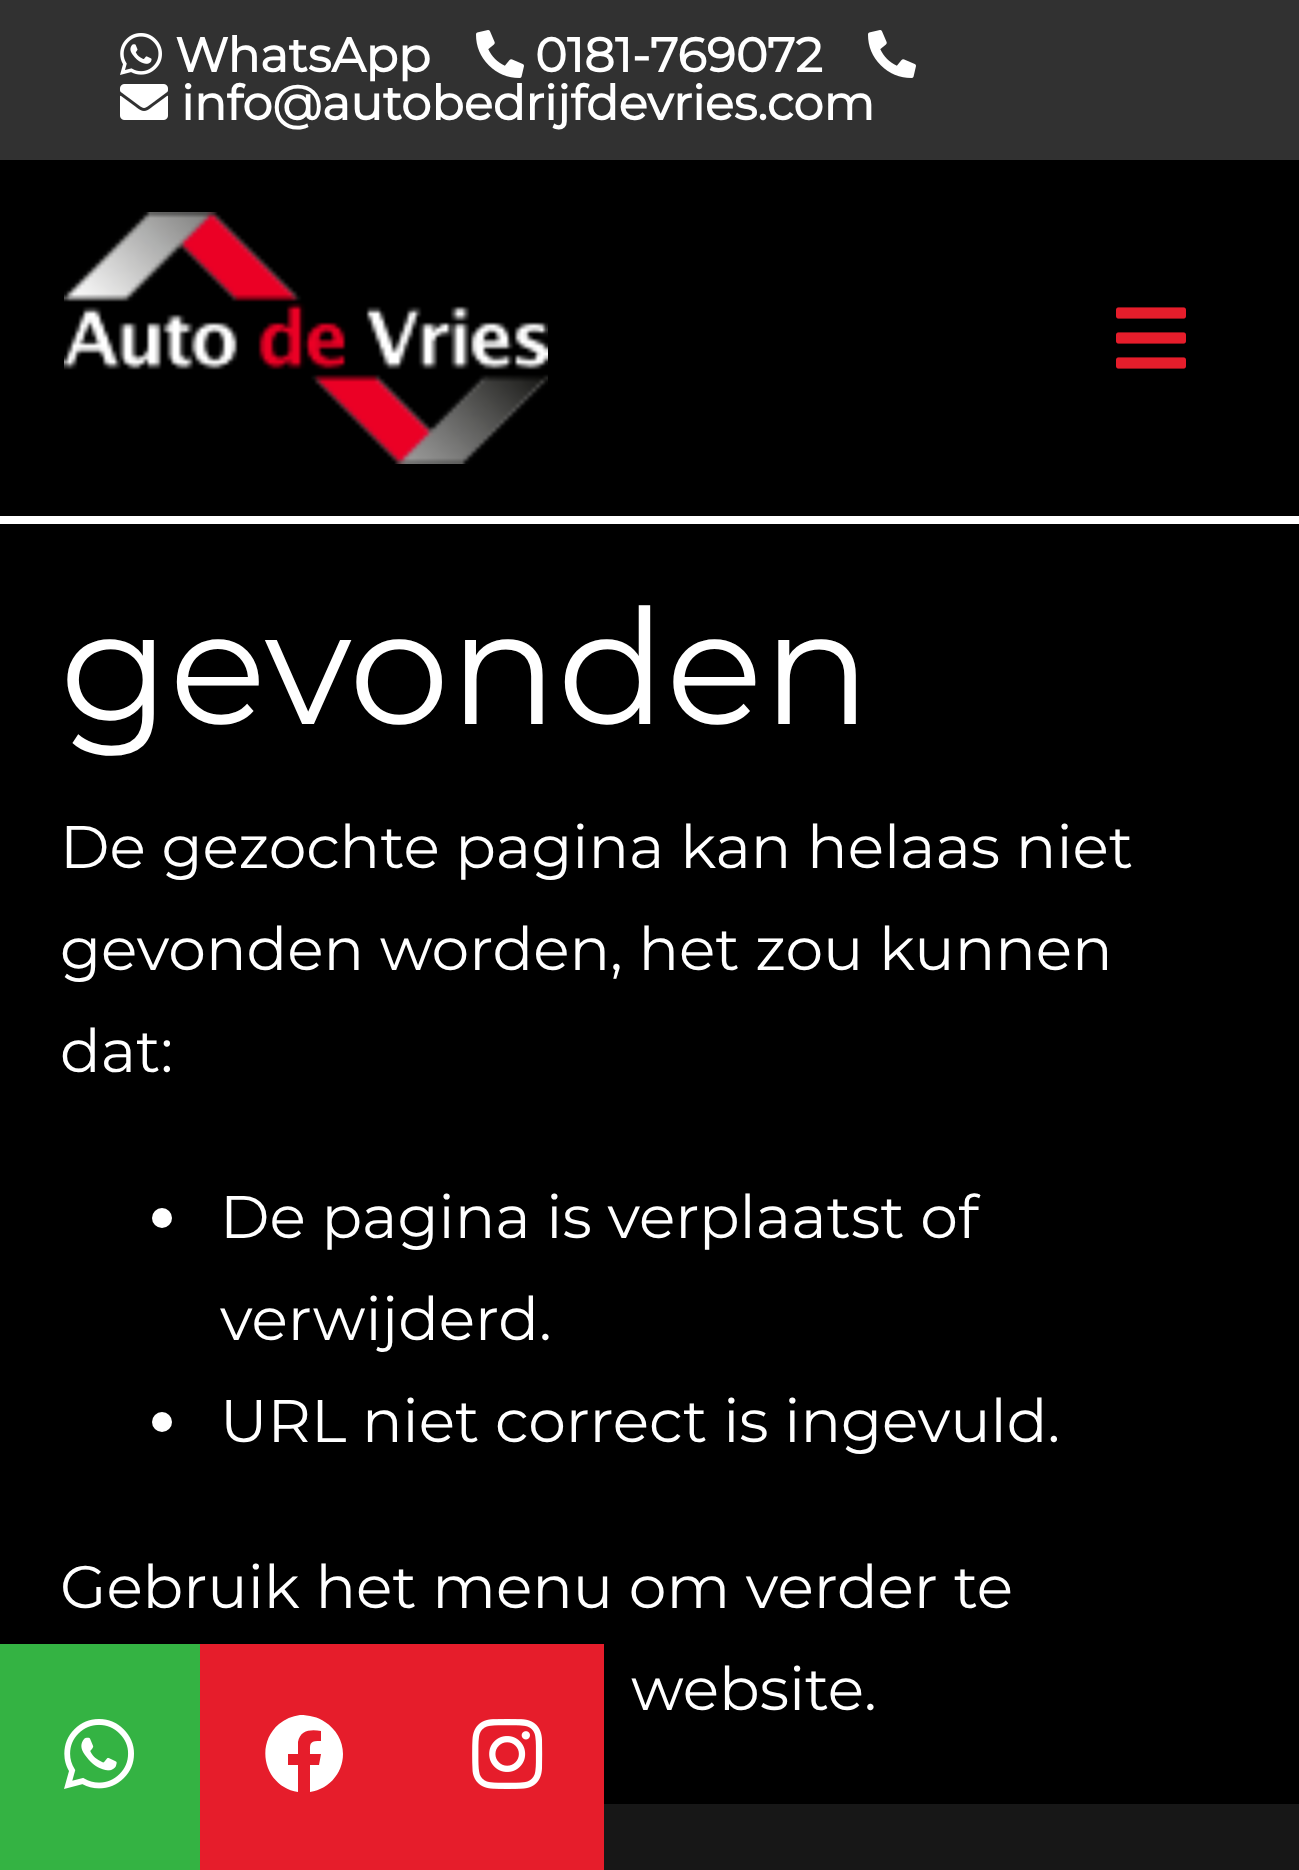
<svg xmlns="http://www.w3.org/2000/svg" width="1299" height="1870">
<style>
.a{font:bold 48px Montserrat;fill:#fff}
.b{font:100 160px Montserrat;fill:#fff}
.c{font:100 60px Montserrat;fill:#fff}
</style>
<rect width="100%" height="100%" fill="#000"/>
<path fill="#313131" d="M0 0h1299v160H0z"/>
<image href="1.png" x="120" y="33" width="42" height="42"/>
<image href="2.png" x="476" y="30" width="48" height="48"/>
<image href="2.png" x="868" y="30" width="48" height="48"/>
<image href="3.png" x="120" y="84" width="48" height="36"/>
<path fill="#fff" d="M0 516h1299v8H0z"/>
<image href="4.png" x="64" y="212" width="484" height="252"/>
<image href="5.png" x="1116" y="307" width="70" height="62"/>
<circle fill="#fff" cx="162" cy="1218" r="10"/>
<circle fill="#fff" cx="162" cy="1422" r="10"/>
<path fill="#34b343" d="M0 1644h200v226H0z"/>
<image href="6.png" x="64" y="1719" width="70" height="70"/>
<path fill="#e61d2b" d="M200 1644h404v226H200z"/>
<path fill="#fff" d="M343 1754c0 19-14 35-33 38v-27h9l2-11h-11c0-11-1-13 11-13v-10c-10-2-21-1-23 11v12h-10v11h10v27c-33-5-44-47-19-68c6-5 13-8 21-9c9 0 18 2 25 7c11 7 18 19 18 32z"/>
<image href="7.png" x="472" y="1719" width="71" height="70"/>
<path fill="#171717" d="M604 1804h695v66H604z"/>
<text class="a" x="175" y="72">WhatsApp</text>
<text class="a" x="535" y="72">0181-769072</text>
<text class="a" x="181" y="120">info@autobedrijfdevries.com</text>
<text class="b" x="60" y="724">gevonden</text>
<text class="c" x="60" y="868">De gezochte pagina kan helaas niet</text>
<text class="c" x="60" y="970">gevonden worden, het zou kunnen</text>
<text class="c" x="60" y="1072">dat:</text>
<text class="c" x="220" y="1238">De pagina is verplaatst of</text>
<text class="c" x="220" y="1340">verwijderd.</text>
<text class="c" x="220" y="1442">URL niet correct is ingevuld.</text>
<text class="c" x="60" y="1608">Gebruik het menu om verder te</text>
<text class="c" x="631" y="1710">website.</text>
</svg>
